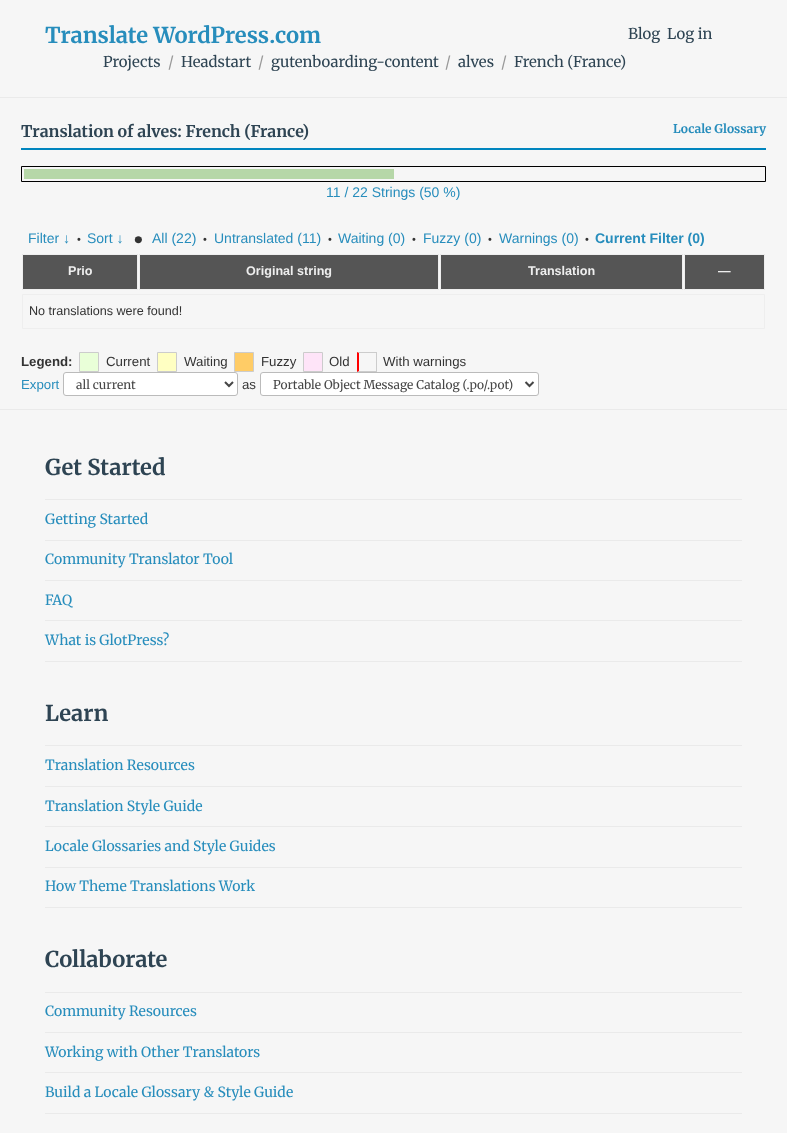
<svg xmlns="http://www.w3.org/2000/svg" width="787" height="1133">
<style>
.a{font:bold 21.9px Merriweather;fill:#278dbc}
.b{font:14.9px Merriweather;fill:#2e4453}
.c{font:14.9px Merriweather;fill:#999}
.d{font:bold 16px Merriweather;fill:#2e4453}
.e{font:bold 12px Merriweather;fill:#278dbc}
.f{font:14px Liberation Sans;fill:#278dbc}
.g{font:11px Liberation Sans;fill:#333}
.h{font:bold 25px Liberation Sans;fill:#333}
.i{font:bold 14px Liberation Sans;fill:#278dbc}
.j{font:bold 12.6px Liberation Sans;fill:#eee}
.k{font:12.6px Liberation Sans;fill:#333}
.l{font:bold 13.25px Liberation Sans;fill:#333}
.m{font:13.25px Liberation Sans;fill:#333}
.n{font:13.25px Liberation Sans;fill:#278dbc}
.o{font:12px Merriweather;fill:#464646}
.p{font:bold 21.9px Merriweather;fill:#2e4453}
.q{font:14px Merriweather;fill:#278dbc}
</style>
<rect width="100%" height="100%" fill="#f6f6f6"/>
<path fill="#eaeaea" d="M0 97h787v1H0z"/>
<path fill="#0085be" d="M21 148h745v2H21z"/>
<path fill="none" stroke="#000" d="M21.5 166.5h744v15H21.5z"/>
<path fill="#b6d7a8" d="M24 169h370v10H24z"/>
<path fill="#555" stroke="#eee" d="M22.5 254.5h115v35H22.5z"/>
<path fill="#555" stroke="#eee" d="M139.5 254.5h299v35H139.5z"/>
<path fill="#555" stroke="#eee" d="M440.5 254.5h242v35H440.5z"/>
<path fill="#555" stroke="#eee" d="M684.5 254.5h80v35H684.5z"/>
<path fill="none" stroke="#eee" d="M22.5 294.5h742v34H22.5z"/>
<path fill="#e9ffd8" stroke="#ccc" d="M79.5 352.5h19v19H79.5z"/>
<path fill="#ffffc2" stroke="#ccc" d="M157.5 352.5h19v19H157.5z"/>
<path fill="#fc6" stroke="#ccc" d="M234.5 352.5h19v19H234.5z"/>
<path fill="#fee4f8" stroke="#ccc" d="M303.5 352.5h19v19H303.5z"/>
<path fill="#ccc" d="M357 352h20l-1 1h-17z"/>
<path fill="#ccc" d="M376 352h1v20H376z"/>
<path fill="#ccc" d="M377 372h-20l2-1h17z"/>
<path fill="#f00" d="M357 372v-20l2 1v18z"/>
<rect fill="#fff" stroke="#bbb" x="63.5" y="372.5" width="174" height="23" rx="2.5"/>
<path fill="none" stroke="#464646" stroke-width="2" d="M225 382l4 4l4-4"/>
<rect fill="#fff" stroke="#bbb" x="260.5" y="372.5" width="278" height="23" rx="2.5"/>
<path fill="none" stroke="#464646" stroke-width="2" d="M525.5 382l4 4l4-4"/>
<path fill="#eaeaea" d="M0 409h787v1H0z"/>
<path fill="#eaeaea" d="M45 661h697v1H45z"/>
<path fill="#eaeaea" d="M45 499h697v1H45z"/>
<path fill="#eaeaea" d="M45 540h697v1H45z"/>
<path fill="#eaeaea" d="M45 580h697v1H45z"/>
<path fill="#eaeaea" d="M45 620h697v1H45z"/>
<path fill="#eaeaea" d="M45 907h697v1H45z"/>
<path fill="#eaeaea" d="M45 745h697v1H45z"/>
<path fill="#eaeaea" d="M45 786h697v1H45z"/>
<path fill="#eaeaea" d="M45 826h697v1H45z"/>
<path fill="#eaeaea" d="M45 867h697v1H45z"/>
<path fill="#eaeaea" d="M45 1113h697v1H45z"/>
<path fill="#eaeaea" d="M45 992h697v1H45z"/>
<path fill="#eaeaea" d="M45 1032h697v1H45z"/>
<path fill="#eaeaea" d="M45 1072h697v1H45z"/>
<text class="a" x="45" y="43">Translate WordPress.com</text>
<text class="b" x="628" y="39">Blog</text>
<text class="b" x="667" y="39">Log in</text>
<text class="b" x="103" y="67">Projects</text>
<text class="c" x="168" y="67">/</text>
<text class="b" x="181" y="67">Headstart</text>
<text class="c" x="258" y="67">/</text>
<text class="b" x="271" y="67">gutenboarding-content</text>
<text class="c" x="445" y="67">/</text>
<text class="b" x="458" y="67">alves</text>
<text class="c" x="501" y="67">/</text>
<text class="b" x="514" y="67">French (France)</text>
<text class="d" x="21" y="137">Translation of alves: French (France)</text>
<text class="e" x="673" y="133">Locale Glossary</text>
<text class="f" x="326" y="197">11 / 22 Strings (50 %)</text>
<text class="f" x="28" y="243">Filter ↓</text>
<text class="g" x="77" y="243">•</text>
<text class="f" x="87" y="243">Sort ↓</text>
<text class="h" x="134" y="248">•</text>
<text class="f" x="152" y="243">All (22)</text>
<text class="g" x="203" y="243">•</text>
<text class="f" x="214" y="243">Untranslated (11)</text>
<text class="g" x="328" y="243">•</text>
<text class="f" x="338" y="243">Waiting (0)</text>
<text class="g" x="412" y="243">•</text>
<text class="f" x="423" y="243">Fuzzy (0)</text>
<text class="g" x="488" y="243">•</text>
<text class="f" x="499" y="243">Warnings (0)</text>
<text class="g" x="585" y="243">•</text>
<text class="i" x="595" y="243">Current Filter (0)</text>
<text class="j" x="68" y="275">Prio</text>
<text class="j" x="246" y="275">Original string</text>
<text class="j" x="528" y="275">Translation</text>
<text class="j" x="718" y="275">—</text>
<text class="k" x="29" y="315">No translations were found!</text>
<text class="l" x="21" y="366">Legend:</text>
<text class="m" x="106" y="366">Current</text>
<text class="m" x="184" y="366">Waiting</text>
<text class="m" x="261" y="366">Fuzzy</text>
<text class="m" x="329" y="366">Old</text>
<text class="m" x="383" y="366">With warnings</text>
<text class="n" x="21" y="389">Export</text>
<text class="o" x="76" y="389">all current</text>
<text class="m" x="242" y="389">as</text>
<text class="o" x="273" y="389">Portable Object Message Catalog (.po/.pot)</text>
<text class="p" x="45" y="475">Get Started</text>
<text class="q" x="45" y="524">Getting Started</text>
<text class="q" x="45" y="564">Community Translator Tool</text>
<text class="q" x="45" y="605">FAQ</text>
<text class="q" x="45" y="645">What is GlotPress?</text>
<text class="p" x="45" y="721">Learn</text>
<text class="q" x="45" y="770">Translation Resources</text>
<text class="q" x="45" y="811">Translation Style Guide</text>
<text class="q" x="45" y="851">Locale Glossaries and Style Guides</text>
<text class="q" x="45" y="891">How Theme Translations Work</text>
<text class="p" x="45" y="967">Collaborate</text>
<text class="q" x="45" y="1016">Community Resources</text>
<text class="q" x="45" y="1057">Working with Other Translators</text>
<text class="q" x="45" y="1097">Build a Locale Glossary &amp; Style Guide</text>
</svg>
